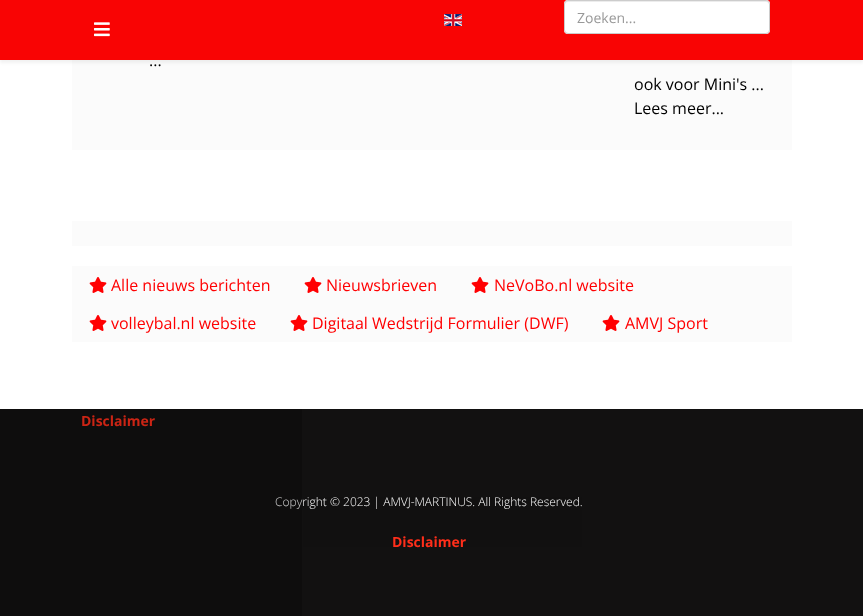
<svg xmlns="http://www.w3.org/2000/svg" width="863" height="616">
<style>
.a{font:14px Open Sans;fill:#999}
.b{font:16px Open Sans;fill:#000}
.c{font:16px Open Sans;fill:#ff0002}
.d{font:bold 14px Open Sans;fill:#ff2e1a}
.e{font:300 12px Open Sans;fill:#fff}
</style>
<rect width="100%" height="100%" fill="#fff"/>
<path fill="#fbfbfb" d="M72 60h720v90H72z"/>
<path fill="#0000000d" filter="blur(1.5px)" d="M0 3h863v60H0z"/>
<path fill="#f90404" d="M0 0h863v60H0z"/>
<image href="1.png" x="444" y="14" width="18" height="12"/>
<rect fill="#fff" x="564" width="206" height="34" rx="4"/>
<path fill="#ececec" d="M568 2h198c2 0 3 1 3 3c0-2-1-4-3-4h-198c-2 0-3 2-3 4c0-2 1-3 3-3z"/>
<rect fill="none" stroke="#ccc" x="564.5" y="0.5" width="205" height="33" rx="3.5"/>
<image href="2.png" x="94" y="22" width="16" height="15"/>
<path fill="#fbfbfb" d="M72 221h720v25H72z"/>
<path fill="#fbfbfb" d="M72 266h720v76H72z"/>
<image href="3.png" x="89" y="277" width="18" height="16"/>
<image href="3.png" x="304" y="277" width="18" height="16"/>
<image href="3.png" x="471" y="277" width="18" height="16"/>
<image href="3.png" x="89" y="315" width="18" height="16"/>
<image href="3.png" x="290" y="315" width="18" height="16"/>
<image href="3.png" x="602" y="315" width="18" height="16"/>
<path fill="#121111" d="M0 409h863v207H0z"/>
<path fill="#0000000d" d="M303 497h279v50H303z"/>
<text class="a" x="577" y="23">Zoeken...</text>
<text class="b" x="149" y="66">...</text>
<text class="b" x="634" y="90">ook voor Mini's ...</text>
<text class="b" x="634" y="114">Lees meer...</text>
<text class="c" x="111" y="291">Alle nieuws berichten</text>
<text class="c" x="326" y="291">Nieuwsbrieven</text>
<text class="c" x="494" y="291">NeVoBo.nl website</text>
<text class="c" x="111" y="329">volleybal.nl website</text>
<text class="c" x="312" y="329">Digitaal Wedstrijd Formulier (DWF)</text>
<text class="c" x="625" y="329">AMVJ Sport</text>
<text class="d" x="81" y="426">Disclaimer</text>
<text class="e" x="275" y="506">Copyright © 2023 | AMVJ-MARTINUS. All Rights Reserved.</text>
<path fill="#00000033" d="M0 409h302v207H0z"/>
<text class="d" x="392" y="547">Disclaimer</text>
</svg>
